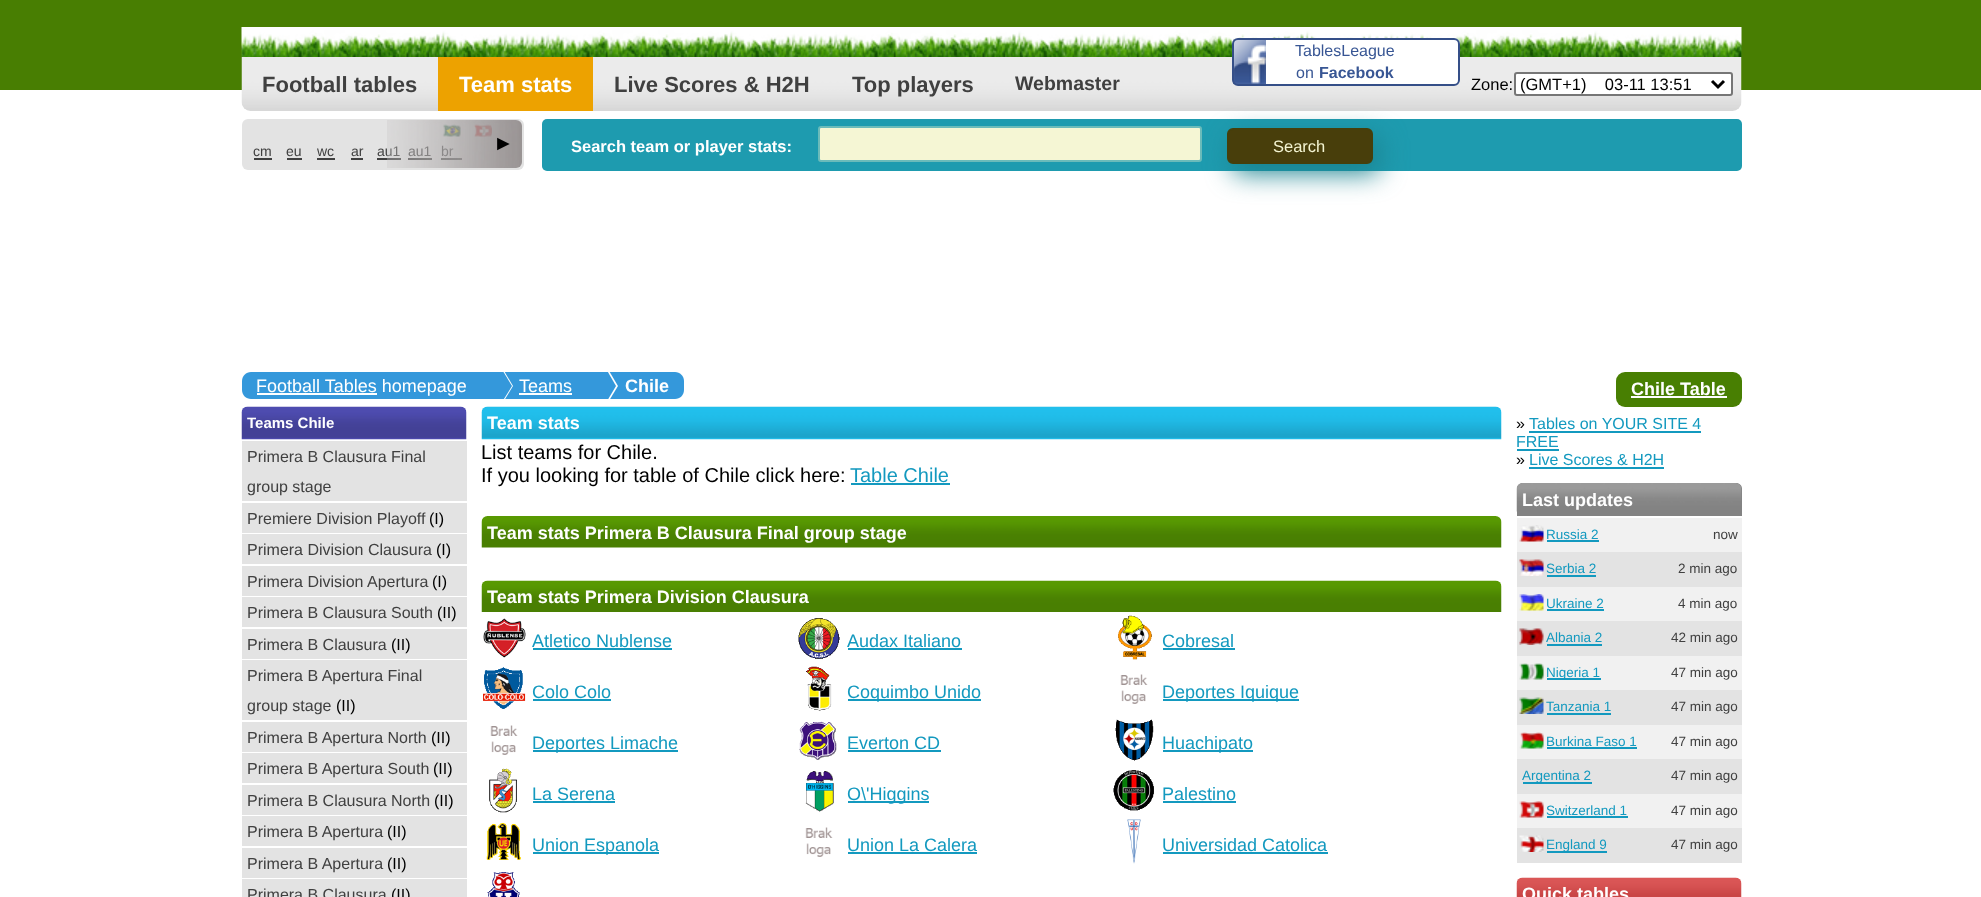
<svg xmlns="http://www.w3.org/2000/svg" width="1981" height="897">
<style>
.a{font:16px Liberation Sans;fill:#385694}
.b{font:bold 16px Liberation Sans;fill:#385694}
.c{font:bold 22px Liberation Sans;fill:#404040}
.d{font:bold 22px Liberation Sans;fill:#fff}
.e{font:bold 19.5px Liberation Sans;fill:#404040}
.f{font:16.5px Liberation Sans;fill:#000}
.g{font:14px Liberation Sans;fill:#404040}
.h{font:bold 21px Liberation Sans;fill:#000}
.i{font:bold 16.5px Liberation Sans;fill:#fff}
.j{font:16.5px Liberation Sans;fill:#f4f4d2}
.k{font:18px Liberation Sans;fill:#fff}
.l{font:bold 18px Liberation Sans;fill:#fff}
.m{font:bold 15px Liberation Sans;fill:#fff}
.n{font:16px Liberation Sans;fill:#404040}
.o{font:16px Liberation Sans;fill:#000}
.p{font:20px Liberation Sans;fill:#000}
.q{font:20px Liberation Sans;fill:#1399bf}
.r{font:18px Liberation Sans;fill:#1399bf}
.s{font:16px Liberation Sans;fill:#1399bf}
.t{font:13.5px Liberation Sans;fill:#1399bf}
.u{font:13.5px Liberation Sans;fill:#404040}
</style>
<defs>
<clipPath id="clip1"><path d="M242 372h1374v27H242z"/></clipPath>
</defs>
<rect width="100%" height="100%" fill="#fff"/>
<path fill="#487e02" d="M0 0h1981v90H0z"/>
<image href="1.png" x="241" y="27" width="1501" height="30"/>
<image href="3.png" x="241" y="57" width="1501" height="54"/>
<rect fill="#fff" x="1232" y="38" width="228" height="48" rx="6"/>
<image href="2.png" x="1233" y="39" width="33" height="45"/>
<rect fill="none" stroke="#354f88" stroke-width="2" x="1233" y="39" width="226" height="46" rx="5"/>
<path fill="#eda200" d="M438 57h155v54H438z"/>
<rect fill="#fff" stroke="#767676" stroke-width="2" x="1515" y="73" width="217" height="22" rx="2"/>
<path fill="none" stroke="#000" stroke-width="3" d="M1712 81l6 6l6-6"/>
<rect fill="#e3e3e3" x="242" y="119" width="282" height="51" rx="6"/>
<image href="4.png" x="474" y="124" width="18" height="13"/>
<path fill="#404040" d="M254 158h18v2H254z"/>
<path fill="#404040" d="M287 158h15v2H287z"/>
<path fill="#404040" d="M317 158h18v2H317z"/>
<path fill="#404040" d="M351 158h12v2H351z"/>
<path fill="#404040" d="M377 158h24v2H377z"/>
<path fill="#404040" d="M408 158h24v2H408z"/>
<image href="5.png" x="442" y="124" width="19" height="13"/>
<path fill="#404040" d="M441 158h21v2H441z"/>
<rect fill="#1e9baf" x="542" y="119" width="1200" height="52" rx="5"/>
<rect fill="#f5f6d4" stroke="#6bbbba" stroke-width="2" x="819" y="127" width="382" height="34" rx="2"/>
<rect fill="#1a828f" filter="blur(13.5px)" x="1233" y="137" width="146" height="36" rx="6"/>
<rect fill="#483e0b" stroke="#463f0b" stroke-width="2" x="1228" y="129" width="144" height="34" rx="5"/>
<path fill="#3498db" d="M251 372h216v27h-216c-5 0-9-4-9-9v-9c0-5 4-9 9-9z"/>
<path fill="#3498db" d="M504 372h68v27H504z"/>
<g clip-path="url(#clip1)">
<path fill="#fff" d="M468 460v-150l45 76z"/>
<path fill="#3498db" d="M466 460v-150l46 76z"/>
</g>
<path fill="#fff" d="M257 393h120v2H257z"/>
<path fill="#3498db" d="M572 372h103c5 0 9 4 9 9v9c0 5-4 9-9 9h-103z"/>
<g clip-path="url(#clip1)">
<path fill="#fff" d="M573 460v-150l45 76z"/>
<path fill="#3498db" d="M572 460v-150l44 76z"/>
</g>
<path fill="#fff" d="M519 393h53v2H519z"/>
<rect fill="#487f02" x="1616" y="372" width="126" height="35" rx="9"/>
<path fill="#fff" d="M1631 396h96v2H1631z"/>
<image href="7.png" x="241" y="406" width="226" height="34"/>
<path fill="#e3e3e3" d="M242 441h225v60H242z"/>
<path fill="#e3e3e3" d="M242 503h225v30H242z"/>
<path fill="#e3e3e3" d="M242 534h225v30H242z"/>
<path fill="#e3e3e3" d="M242 566h225v30H242z"/>
<path fill="#e3e3e3" d="M242 597h225v30H242z"/>
<path fill="#e3e3e3" d="M242 629h225v30H242z"/>
<path fill="#e3e3e3" d="M242 660h225v60H242z"/>
<path fill="#e3e3e3" d="M242 722h225v30H242z"/>
<path fill="#e3e3e3" d="M242 753h225v30H242z"/>
<path fill="#e3e3e3" d="M242 785h225v30H242z"/>
<path fill="#e3e3e3" d="M242 816h225v30H242z"/>
<path fill="#e3e3e3" d="M242 848h225v30H242z"/>
<path fill="#e3e3e3" d="M242 879h225v18H242z"/>
<image href="8.png" x="481" y="406" width="1021" height="34"/>
<path fill="#1399bf" d="M851 483h99v2H851z"/>
<image href="9.png" x="481" y="516" width="1021" height="32"/>
<image href="10.png" x="481" y="580" width="1021" height="32"/>
<image href="11.png" x="483" y="618" width="43" height="40"/>
<path fill="#1399bf" d="M533 648h139v2H533z"/>
<image href="12.png" x="798" y="618" width="42" height="41"/>
<path fill="#1399bf" d="M848 648h114v2H848z"/>
<image href="13.png" x="1118" y="615" width="34" height="45"/>
<path fill="#1399bf" d="M1163 648h72v2H1163z"/>
<image href="14.png" x="483" y="667" width="43" height="42"/>
<path fill="#1399bf" d="M533 699h78v2H533z"/>
<image href="15.png" x="806" y="666" width="26" height="45"/>
<path fill="#1399bf" d="M848 699h133v2H848z"/>
<image href="16.png" x="1120" y="674" width="28" height="30"/>
<path fill="#1399bf" d="M1163 699h136v2H1163z"/>
<image href="17.png" x="490" y="725" width="28" height="30"/>
<path fill="#1399bf" d="M533 750h145v2H533z"/>
<image href="18.png" x="799" y="721" width="38" height="39"/>
<path fill="#1399bf" d="M848 750h93v2H848z"/>
<image href="19.png" x="1115" y="719" width="39" height="42"/>
<path fill="#1399bf" d="M1163 750h90v2H1163z"/>
<image href="20.png" x="489" y="768" width="28" height="45"/>
<path fill="#1399bf" d="M533 801h82v2H533z"/>
<image href="21.png" x="805" y="771" width="29" height="41"/>
<path fill="#1399bf" d="M848 801h81v2H848z"/>
<image href="22.png" x="1113" y="770" width="41" height="41"/>
<path fill="#1399bf" d="M1163 801h73v2H1163z"/>
<image href="23.png" x="486" y="823" width="35" height="37"/>
<path fill="#1399bf" d="M533 852h126v2H533z"/>
<image href="16.png" x="805" y="827" width="28" height="30"/>
<path fill="#1399bf" d="M848 852h129v2H848z"/>
<image href="24.png" x="1127" y="819" width="14" height="45"/>
<path fill="#1399bf" d="M1163 852h165v2H1163z"/>
<image href="25.png" x="487" y="872" width="33" height="25"/>
<path fill="#1399bf" d="M1529 431h172v2H1529z"/>
<path fill="#1399bf" d="M1517 449h42v2H1517z"/>
<path fill="#1399bf" d="M1529 467h135v2H1529z"/>
<path fill="#838383" d="M1523 483h213c3.5 0 6 2.5 6 6v27h-225v-27c0-3.5 2.5-6 6-6z"/>
<image href="26.png" x="1516" y="483" width="226" height="29"/>
<path fill="#f1f1f1" d="M1517 518h225v34H1517z"/>
<image href="27.png" x="1519" y="525" width="25" height="17"/>
<path fill="#1399bf" d="M1547 540h52v2H1547z"/>
<path fill="#e3e3e3" d="M1517 552h225v35H1517z"/>
<image href="28.png" x="1519" y="559" width="25" height="17"/>
<path fill="#1399bf" d="M1547 575h49v2H1547z"/>
<path fill="#f1f1f1" d="M1517 587h225v34H1517z"/>
<image href="29.png" x="1519" y="594" width="25" height="17"/>
<path fill="#1399bf" d="M1547 609h57v2H1547z"/>
<path fill="#e3e3e3" d="M1517 621h225v35H1517z"/>
<image href="30.png" x="1519" y="628" width="25" height="17"/>
<path fill="#1399bf" d="M1547 644h55v2H1547z"/>
<path fill="#f1f1f1" d="M1517 656h225v34H1517z"/>
<image href="31.png" x="1519" y="663" width="25" height="17"/>
<path fill="#1399bf" d="M1547 678h54v2H1547z"/>
<path fill="#e3e3e3" d="M1517 690h225v35H1517z"/>
<image href="32.png" x="1519" y="697" width="25" height="17"/>
<path fill="#1399bf" d="M1547 713h64v2H1547z"/>
<path fill="#f1f1f1" d="M1517 725h225v34H1517z"/>
<image href="33.png" x="1519" y="732" width="25" height="17"/>
<path fill="#1399bf" d="M1547 747h90v2H1547z"/>
<path fill="#e3e3e3" d="M1517 759h225v35H1517z"/>
<path fill="#1399bf" d="M1523 782h69v2H1523z"/>
<path fill="#f1f1f1" d="M1517 794h225v34H1517z"/>
<image href="34.png" x="1519" y="801" width="25" height="17"/>
<path fill="#1399bf" d="M1547 816h81v2H1547z"/>
<path fill="#e3e3e3" d="M1517 828h225v35H1517z"/>
<image href="35.png" x="1519" y="835" width="25" height="17"/>
<path fill="#1399bf" d="M1547 851h60v2H1547z"/>
<image href="36.png" x="1516" y="877" width="226" height="20"/>
<text class="a" x="1295" y="56">TablesLeague</text>
<text class="a" x="1296" y="78">on</text>
<text class="b" x="1319" y="78">Facebook</text>
<text class="c" x="262" y="92">Football tables</text>
<text class="d" x="459" y="92">Team stats</text>
<text class="c" x="614" y="92">Live Scores &amp; H2H</text>
<text class="c" x="852" y="92">Top players</text>
<text class="e" x="1015" y="90">Webmaster</text>
<text class="f" x="1471" y="90">Zone:</text>
<text class="f" xml:space="preserve" x="1520" y="90">(GMT+1)    03-11 13:51</text>
<text class="g" x="253" y="156">cm</text>
<text class="g" x="286" y="156">eu</text>
<text class="g" x="317" y="156">wc</text>
<text class="g" x="351" y="156">ar</text>
<text class="g" x="377" y="156">au1</text>
<text class="g" x="408" y="156">au1</text>
<text class="g" x="441" y="156">br</text>
<image href="6.png" x="387" y="120" width="135" height="48"/>
<text class="h" x="493" y="150">►</text>
<text class="i" x="571" y="152">Search team or player stats:</text>
<text class="j" x="1273" y="152">Search</text>
<text class="k" x="256" y="392">Football Tables homepage</text>
<text class="k" x="519" y="392">Teams</text>
<text class="l" x="625" y="392">Chile</text>
<text class="l" x="1631" y="395">Chile Table</text>
<text class="m" x="247" y="428">Teams Chile</text>
<text class="n" x="247" y="462">Primera B Clausura Final</text>
<text class="n" x="247" y="492">group stage</text>
<text class="n" x="247" y="524">Premiere Division Playoff</text>
<text class="o" x="429" y="524">(I)</text>
<text class="n" x="247" y="555">Primera Division Clausura</text>
<text class="o" x="436" y="555">(I)</text>
<text class="n" x="247" y="587">Primera Division Apertura</text>
<text class="o" x="432" y="587">(I)</text>
<text class="n" x="247" y="618">Primera B Clausura South</text>
<text class="o" x="437" y="618">(II)</text>
<text class="n" x="247" y="650">Primera B Clausura</text>
<text class="o" x="391" y="650">(II)</text>
<text class="n" x="247" y="681">Primera B Apertura Final</text>
<text class="n" x="247" y="711">group stage</text>
<text class="o" x="336" y="711">(II)</text>
<text class="n" x="247" y="743">Primera B Apertura North</text>
<text class="o" x="431" y="743">(II)</text>
<text class="n" x="247" y="774">Primera B Apertura South</text>
<text class="o" x="433" y="774">(II)</text>
<text class="n" x="247" y="806">Primera B Clausura North</text>
<text class="o" x="434" y="806">(II)</text>
<text class="n" x="247" y="837">Primera B Apertura</text>
<text class="o" x="387" y="837">(II)</text>
<text class="n" x="247" y="869">Primera B Apertura</text>
<text class="o" x="387" y="869">(II)</text>
<text class="n" x="247" y="900">Primera B Clausura</text>
<text class="o" x="391" y="900">(II)</text>
<text class="l" x="487" y="429">Team stats</text>
<text class="p" x="481" y="459">List teams for Chile.</text>
<text class="p" x="481" y="482">If you looking for table of Chile click here:</text>
<text class="q" x="850" y="482">Table Chile</text>
<text class="l" x="487" y="539">Team stats Primera B Clausura Final group stage</text>
<text class="l" x="487" y="603">Team stats Primera Division Clausura</text>
<text class="r" x="532" y="647">Atletico Nublense</text>
<text class="r" x="847" y="647">Audax Italiano</text>
<text class="r" x="1162" y="647">Cobresal</text>
<text class="r" x="532" y="698">Colo Colo</text>
<text class="r" x="847" y="698">Coquimbo Unido</text>
<text class="r" x="1162" y="698">Deportes Iquique</text>
<text class="r" x="532" y="749">Deportes Limache</text>
<text class="r" x="847" y="749">Everton CD</text>
<text class="r" x="1162" y="749">Huachipato</text>
<text class="r" x="532" y="800">La Serena</text>
<text class="r" x="847" y="800">O\'Higgins</text>
<text class="r" x="1162" y="800">Palestino</text>
<text class="r" x="532" y="851">Union Espanola</text>
<text class="r" x="847" y="851">Union La Calera</text>
<text class="r" x="1162" y="851">Universidad Catolica</text>
<text class="o" x="1516" y="429">»</text>
<text class="s" x="1529" y="429">Tables on YOUR SITE 4</text>
<text class="s" x="1516" y="447">FREE</text>
<text class="o" x="1516" y="465">»</text>
<text class="s" x="1529" y="465">Live Scores &amp; H2H</text>
<text class="l" x="1522" y="506">Last updates</text>
<text class="t" x="1546" y="539">Russia 2</text>
<text class="u" x="1713" y="539">now</text>
<text class="t" x="1546" y="573">Serbia 2</text>
<text class="u" x="1678" y="573">2 min ago</text>
<text class="t" x="1546" y="608">Ukraine 2</text>
<text class="u" x="1678" y="608">4 min ago</text>
<text class="t" x="1546" y="642">Albania 2</text>
<text class="u" x="1671" y="642">42 min ago</text>
<text class="t" x="1546" y="677">Nigeria 1</text>
<text class="u" x="1671" y="677">47 min ago</text>
<text class="t" x="1546" y="711">Tanzania 1</text>
<text class="u" x="1671" y="711">47 min ago</text>
<text class="t" x="1546" y="746">Burkina Faso 1</text>
<text class="u" x="1671" y="746">47 min ago</text>
<text class="t" x="1522" y="780">Argentina 2</text>
<text class="u" x="1671" y="780">47 min ago</text>
<text class="t" x="1546" y="815">Switzerland 1</text>
<text class="u" x="1671" y="815">47 min ago</text>
<text class="t" x="1546" y="849">England 9</text>
<text class="u" x="1671" y="849">47 min ago</text>
<text class="l" x="1522" y="900">Quick tables</text>
</svg>
